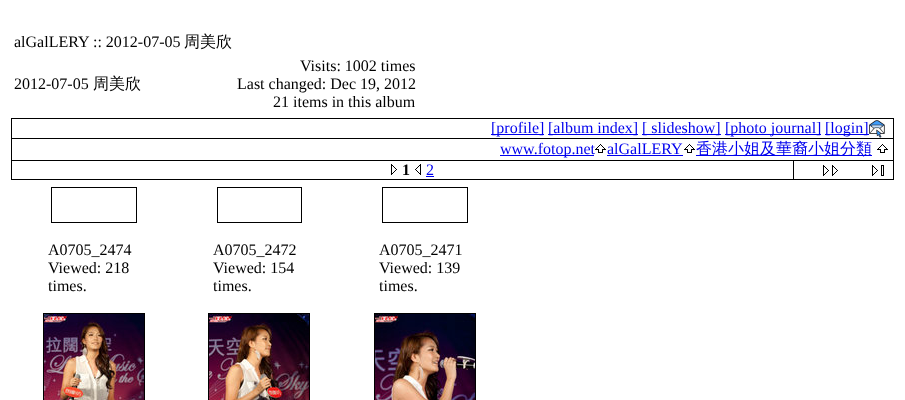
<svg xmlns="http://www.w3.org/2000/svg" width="905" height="400">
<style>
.a{font:16px Liberation Serif;fill:#000}
.b{font:500 16px WenQuanYi Zen Hei;fill:#000}
.c{font:16px Liberation Serif;fill:#00e}
.d{font:500 16px WenQuanYi Zen Hei;fill:#00e}
.e{font:bold 16px Liberation Serif;fill:#000}
</style>
<rect width="100%" height="100%" fill="#fff"/>
<path fill="#000" d="M11 118h883v1H11z"/>
<path fill="#000" d="M11 119h1v19H11z"/>
<path fill="#00e" d="M491 134h53v1H491z"/>
<path fill="#00e" d="M548 134h90v1H548z"/>
<path fill="#00e" d="M642 134h79v1H642z"/>
<path fill="#00e" d="M725 134h96v1H725z"/>
<path fill="#00e" d="M825 134h44v1H825z"/>
<image href="1.png" x="869" y="120" width="16" height="18"/>
<path fill="#000" d="M893 119h1v19H893z"/>
<path fill="#000" d="M11 138h883v1H11z"/>
<path fill="#000" d="M11 139h1v21H11z"/>
<path fill="#00e" d="M500 155h94v1H500z"/>
<image href="2.png" x="595" y="144" width="11" height="9"/>
<path fill="#00e" d="M607 155h76v1H607z"/>
<image href="2.png" x="684" y="144" width="11" height="9"/>
<path fill="#00e" d="M696 155h176v1H696z"/>
<image href="2.png" x="877" y="144" width="11" height="9"/>
<path fill="#000" d="M893 139h1v21H893z"/>
<path fill="#000" d="M11 160h883v1H11z"/>
<path fill="#000" d="M11 161h1v18H11z"/>
<image href="3.png" x="391" y="164" width="6" height="11"/>
<image href="4.png" x="415" y="164" width="6" height="11"/>
<path fill="#00e" d="M426 176h8v1H426z"/>
<path fill="#000" d="M793 161h1v18H793z"/>
<image href="5.png" x="823" y="165" width="15" height="11"/>
<image href="6.png" x="872" y="165" width="12" height="11"/>
<path fill="#000" d="M893 161h1v18H893z"/>
<path fill="#000" d="M11 179h883v1H11z"/>
<path fill="#000" d="M51 187h86v1H51z"/>
<path fill="#000" d="M51 188h1v34H51z"/>
<path fill="#000" d="M136 188h1v34H136z"/>
<path fill="#000" d="M51 222h86v1H51z"/>
<path fill="#000" d="M217 187h85v1H217z"/>
<path fill="#000" d="M217 188h1v34H217z"/>
<path fill="#000" d="M301 188h1v34H301z"/>
<path fill="#000" d="M217 222h85v1H217z"/>
<path fill="#000" d="M382 187h86v1H382z"/>
<path fill="#000" d="M382 188h1v34H382z"/>
<path fill="#000" d="M467 188h1v34H467z"/>
<path fill="#000" d="M382 222h86v1H382z"/>
<path fill="#000" d="M43 313h102v1H43z"/>
<path fill="#000" d="M43 314h1v86H43z"/>
<image href="7.png" x="44" y="314" width="100" height="86"/>
<path fill="#000" d="M144 314h1v86H144z"/>
<path fill="#000" d="M208 313h102v1H208z"/>
<path fill="#000" d="M208 314h1v86H208z"/>
<image href="8.png" x="209" y="314" width="100" height="86"/>
<path fill="#000" d="M309 314h1v86H309z"/>
<path fill="#000" d="M374 313h102v1H374z"/>
<path fill="#000" d="M374 314h1v86H374z"/>
<image href="9.png" x="375" y="314" width="100" height="86"/>
<path fill="#000" d="M475 314h1v86H475z"/>
<text class="a" x="14" y="47">alGalLERY :: 2012-07-05</text>
<text class="b" x="184" y="47">周美欣</text>
<text class="a" x="14" y="89">2012-07-05</text>
<text class="b" x="93" y="89">周美欣</text>
<text class="a" x="300" y="71">Visits: 1002 times</text>
<text class="a" x="237" y="89">Last changed: Dec 19, 2012</text>
<text class="a" x="273" y="107">21 items in this album</text>
<text class="c" x="491" y="133">[profile]</text>
<text class="c" x="548" y="133">[album index]</text>
<text class="c" x="642" y="133">[ slideshow]</text>
<text class="c" x="725" y="133">[photo journal]</text>
<text class="c" x="825" y="133">[login]</text>
<text class="c" x="500" y="154">www.fotop.net</text>
<text class="c" x="607" y="154">alGalLERY</text>
<text class="d" x="696" y="154">香港小姐及華裔小姐分類</text>
<text class="e" x="402" y="175">1</text>
<text class="c" x="426" y="175">2</text>
<text class="a" x="48" y="255">A0705_2474</text>
<text class="a" x="48" y="273">Viewed: 218</text>
<text class="a" x="48" y="291">times.</text>
<text class="a" x="213" y="255">A0705_2472</text>
<text class="a" x="213" y="273">Viewed: 154</text>
<text class="a" x="213" y="291">times.</text>
<text class="a" x="379" y="255">A0705_2471</text>
<text class="a" x="379" y="273">Viewed: 139</text>
<text class="a" x="379" y="291">times.</text>
</svg>
